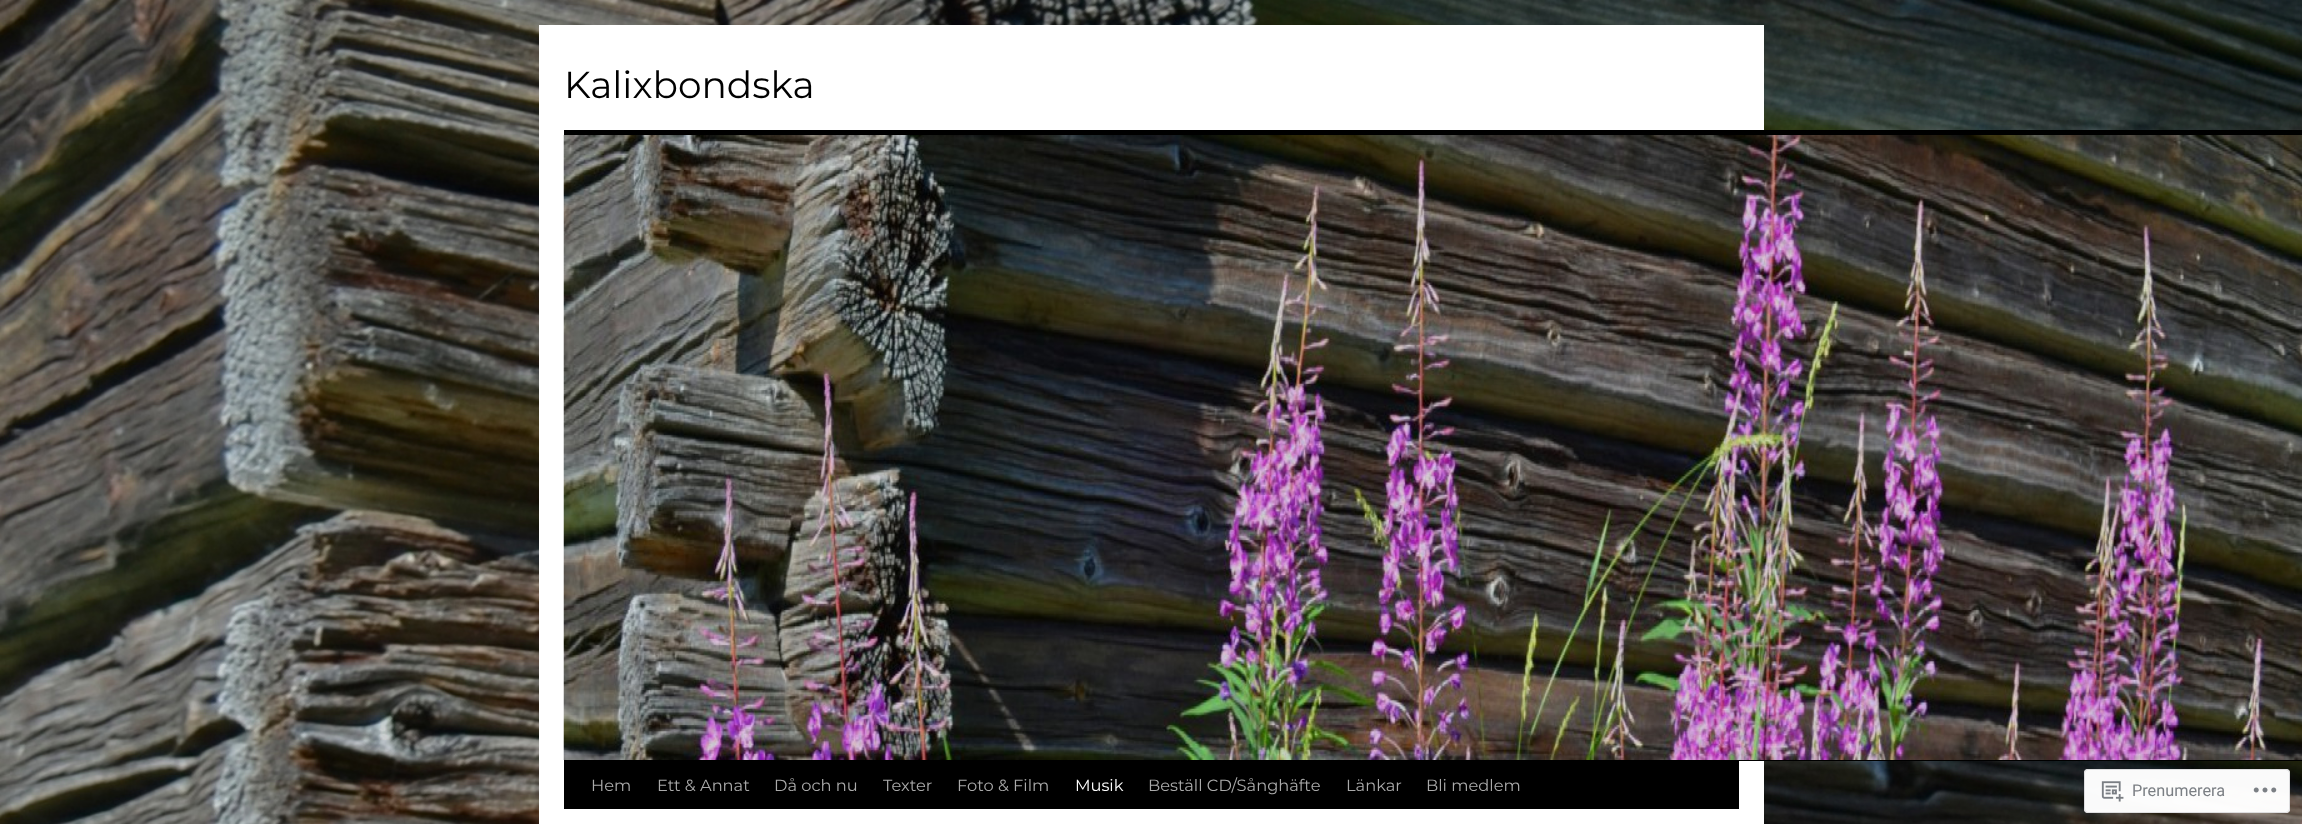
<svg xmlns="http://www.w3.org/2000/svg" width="2302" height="824">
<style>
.a{font:100 37.5px Montserrat;fill:#000}
.b{font:100 16.25px Montserrat;fill:#aaa}
.c{font:100 16.25px Montserrat;fill:#fff}
.d{font:16.25px Roboto;fill:#7b7f84}
</style>
<rect width="100%" height="100%" fill="#fff"/>
<image href="1.png" x="0" y="0" width="2302" height="824"/>
<path fill="#fff" d="M539 25h1225v799H539z"/>
<path fill="#000" d="M564 130h1738v5H564z"/>
<path fill="#000" d="M564 760h1738v1H564z"/>
<image href="2.png" x="563" y="135" width="1739" height="625"/>
<path fill="#000" d="M564 761h1175v48H564z"/>
<rect fill="#fffffffa" x="2084" y="769" width="206" height="44" rx="4"/>
<rect fill="none" stroke="#dcdcdefa" x="2084.5" y="769.5" width="205" height="43" rx="3.5"/>
<image href="3.png" x="2101" y="781" width="23" height="21"/>
<image href="4.png" x="2253" y="787" width="24" height="6"/>
<text class="a" x="564" y="98">Kalixbondska</text>
<text class="b" x="591" y="791">Hem</text>
<text class="b" x="657" y="791">Ett &amp; Annat</text>
<text class="b" x="774" y="791">Då och nu</text>
<text class="b" x="883" y="791">Texter</text>
<text class="b" x="957" y="791">Foto &amp; Film</text>
<text class="c" x="1075" y="791">Musik</text>
<text class="b" x="1148" y="791">Beställ CD/Sånghäfte</text>
<text class="b" x="1346" y="791">Länkar</text>
<text class="b" x="1426" y="791">Bli medlem</text>
<text class="d" x="2132" y="796">Prenumerera</text>
</svg>
